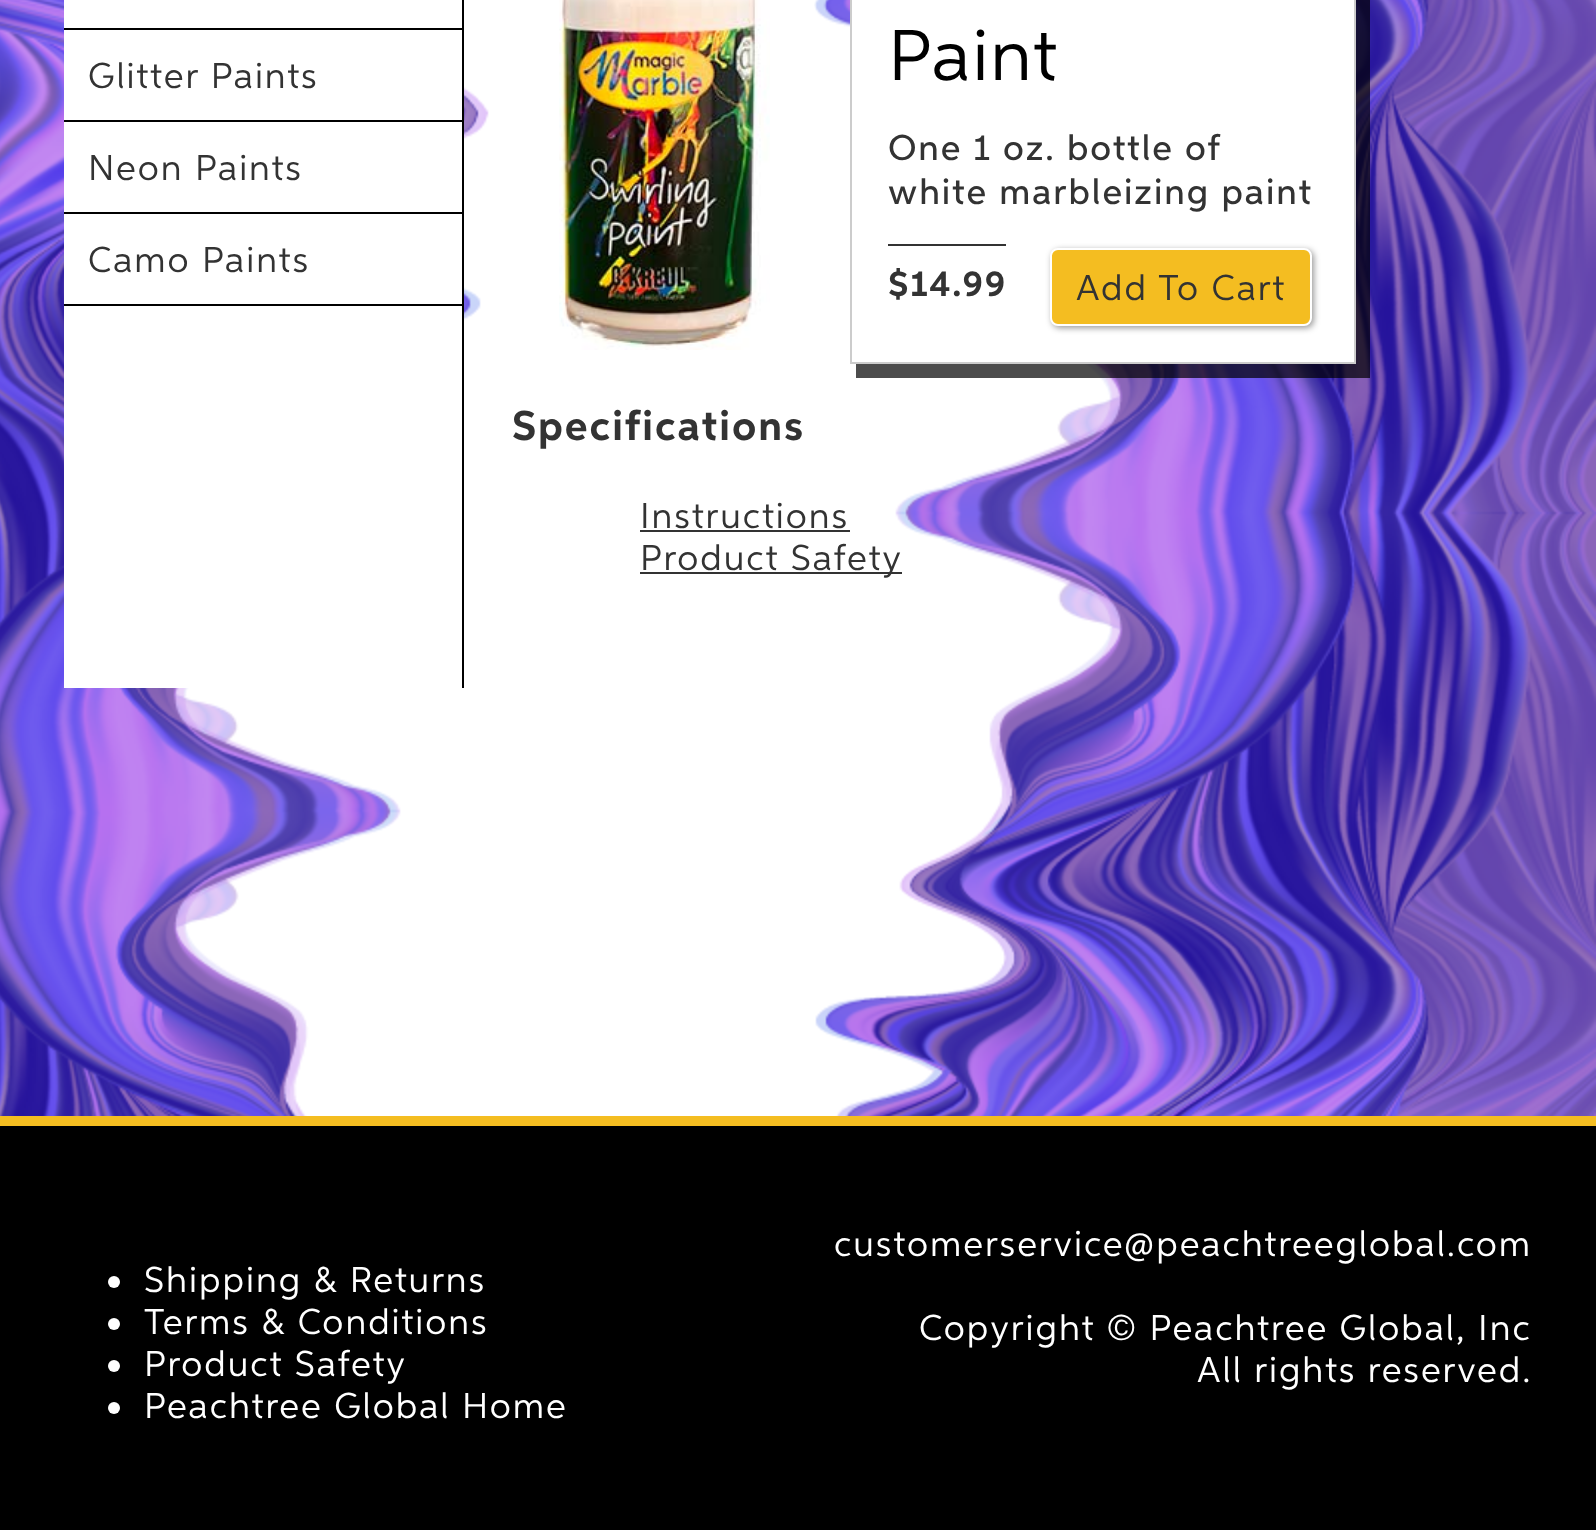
<svg xmlns="http://www.w3.org/2000/svg" width="1596" height="1530">
<style>
.a{font:36px 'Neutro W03';letter-spacing:2px;fill:#333}
.b{font:72px 'Neutro W03';letter-spacing:2px;fill:#000}
.c{font:500 36px 'Neutro W03';letter-spacing:2px;fill:#333}
.d{font:bold 36px 'Neutro W03';letter-spacing:2px;fill:#333}
.e{font:bold 42px 'Neutro W03';letter-spacing:2px;fill:#333}
.f{font:36px 'Neutro W03';letter-spacing:2px;fill:#fff}
</style>
<rect width="100%" height="100%" fill="#fff"/>
<image href="1.png" x="0" y="0" width="489" height="1116"/>
<image href="2.png" x="814" y="0" width="782" height="1116"/>
<path fill="#fff" d="M64 0h398v688H64z"/>
<path fill="#000" d="M462 0h2v688H462z"/>
<path fill="#000" d="M64 28h398v2H64z"/>
<path fill="#000" d="M64 120h398v2H64z"/>
<path fill="#000" d="M64 212h398v2H64z"/>
<path fill="#000" d="M64 304h398v2H64z"/>
<image href="3.png" x="559" y="0" width="211" height="350"/>
<path fill="#000000b3" d="M856 364v14h514v-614h-14v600z"/>
<path fill="#fff" stroke="#ccc" stroke-width="2" d="M851 -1h504v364H851z"/>
<path fill="#333" d="M888 244h118v2H888z"/>
<rect fill="#00000066" filter="blur(3px)" x="1052" y="250" width="262" height="78" rx="8"/>
<rect fill="#f4bd21" stroke="#fff" stroke-width="2" x="1051" y="249" width="260" height="76" rx="7"/>
<path fill="#333" d="M640 530h210v2H640z"/>
<path fill="#333" d="M640 572h262v2H640z"/>
<path fill="#000" d="M0 1126h1596v404H0z"/>
<path fill="#f4bd21" d="M0 1116h1596v10H0z"/>
<circle fill="#fff" cx="114" cy="1282" r="6"/>
<circle fill="#fff" cx="114" cy="1324" r="6"/>
<circle fill="#fff" cx="114" cy="1366" r="6"/>
<circle fill="#fff" cx="114" cy="1408" r="6"/>
<text class="a" x="88" y="88">Glitter Paints</text>
<text class="a" x="88" y="180">Neon Paints</text>
<text class="a" x="88" y="272">Camo Paints</text>
<text class="b" x="888" y="80">Paint</text>
<text class="c" x="888" y="160">One 1 oz. bottle of</text>
<text class="c" x="888" y="204">white marbleizing paint</text>
<text class="d" x="888" y="296">$14.99</text>
<text class="a" x="1076" y="300">Add To Cart</text>
<text class="e" x="512" y="440">Specifications</text>
<text class="a" x="640" y="528">Instructions</text>
<text class="a" x="640" y="570">Product Safety</text>
<text class="f" x="144" y="1292">Shipping &amp; Returns</text>
<text class="f" x="144" y="1334">Terms &amp; Conditions</text>
<text class="f" x="144" y="1376">Product Safety</text>
<text class="f" x="144" y="1418">Peachtree Global Home</text>
<text class="f" x="834" y="1256">customerservice@peachtreeglobal.com</text>
<text class="f" x="919" y="1340">Copyright © Peachtree Global, Inc</text>
<text class="f" x="1197" y="1382">All rights reserved.</text>
</svg>
